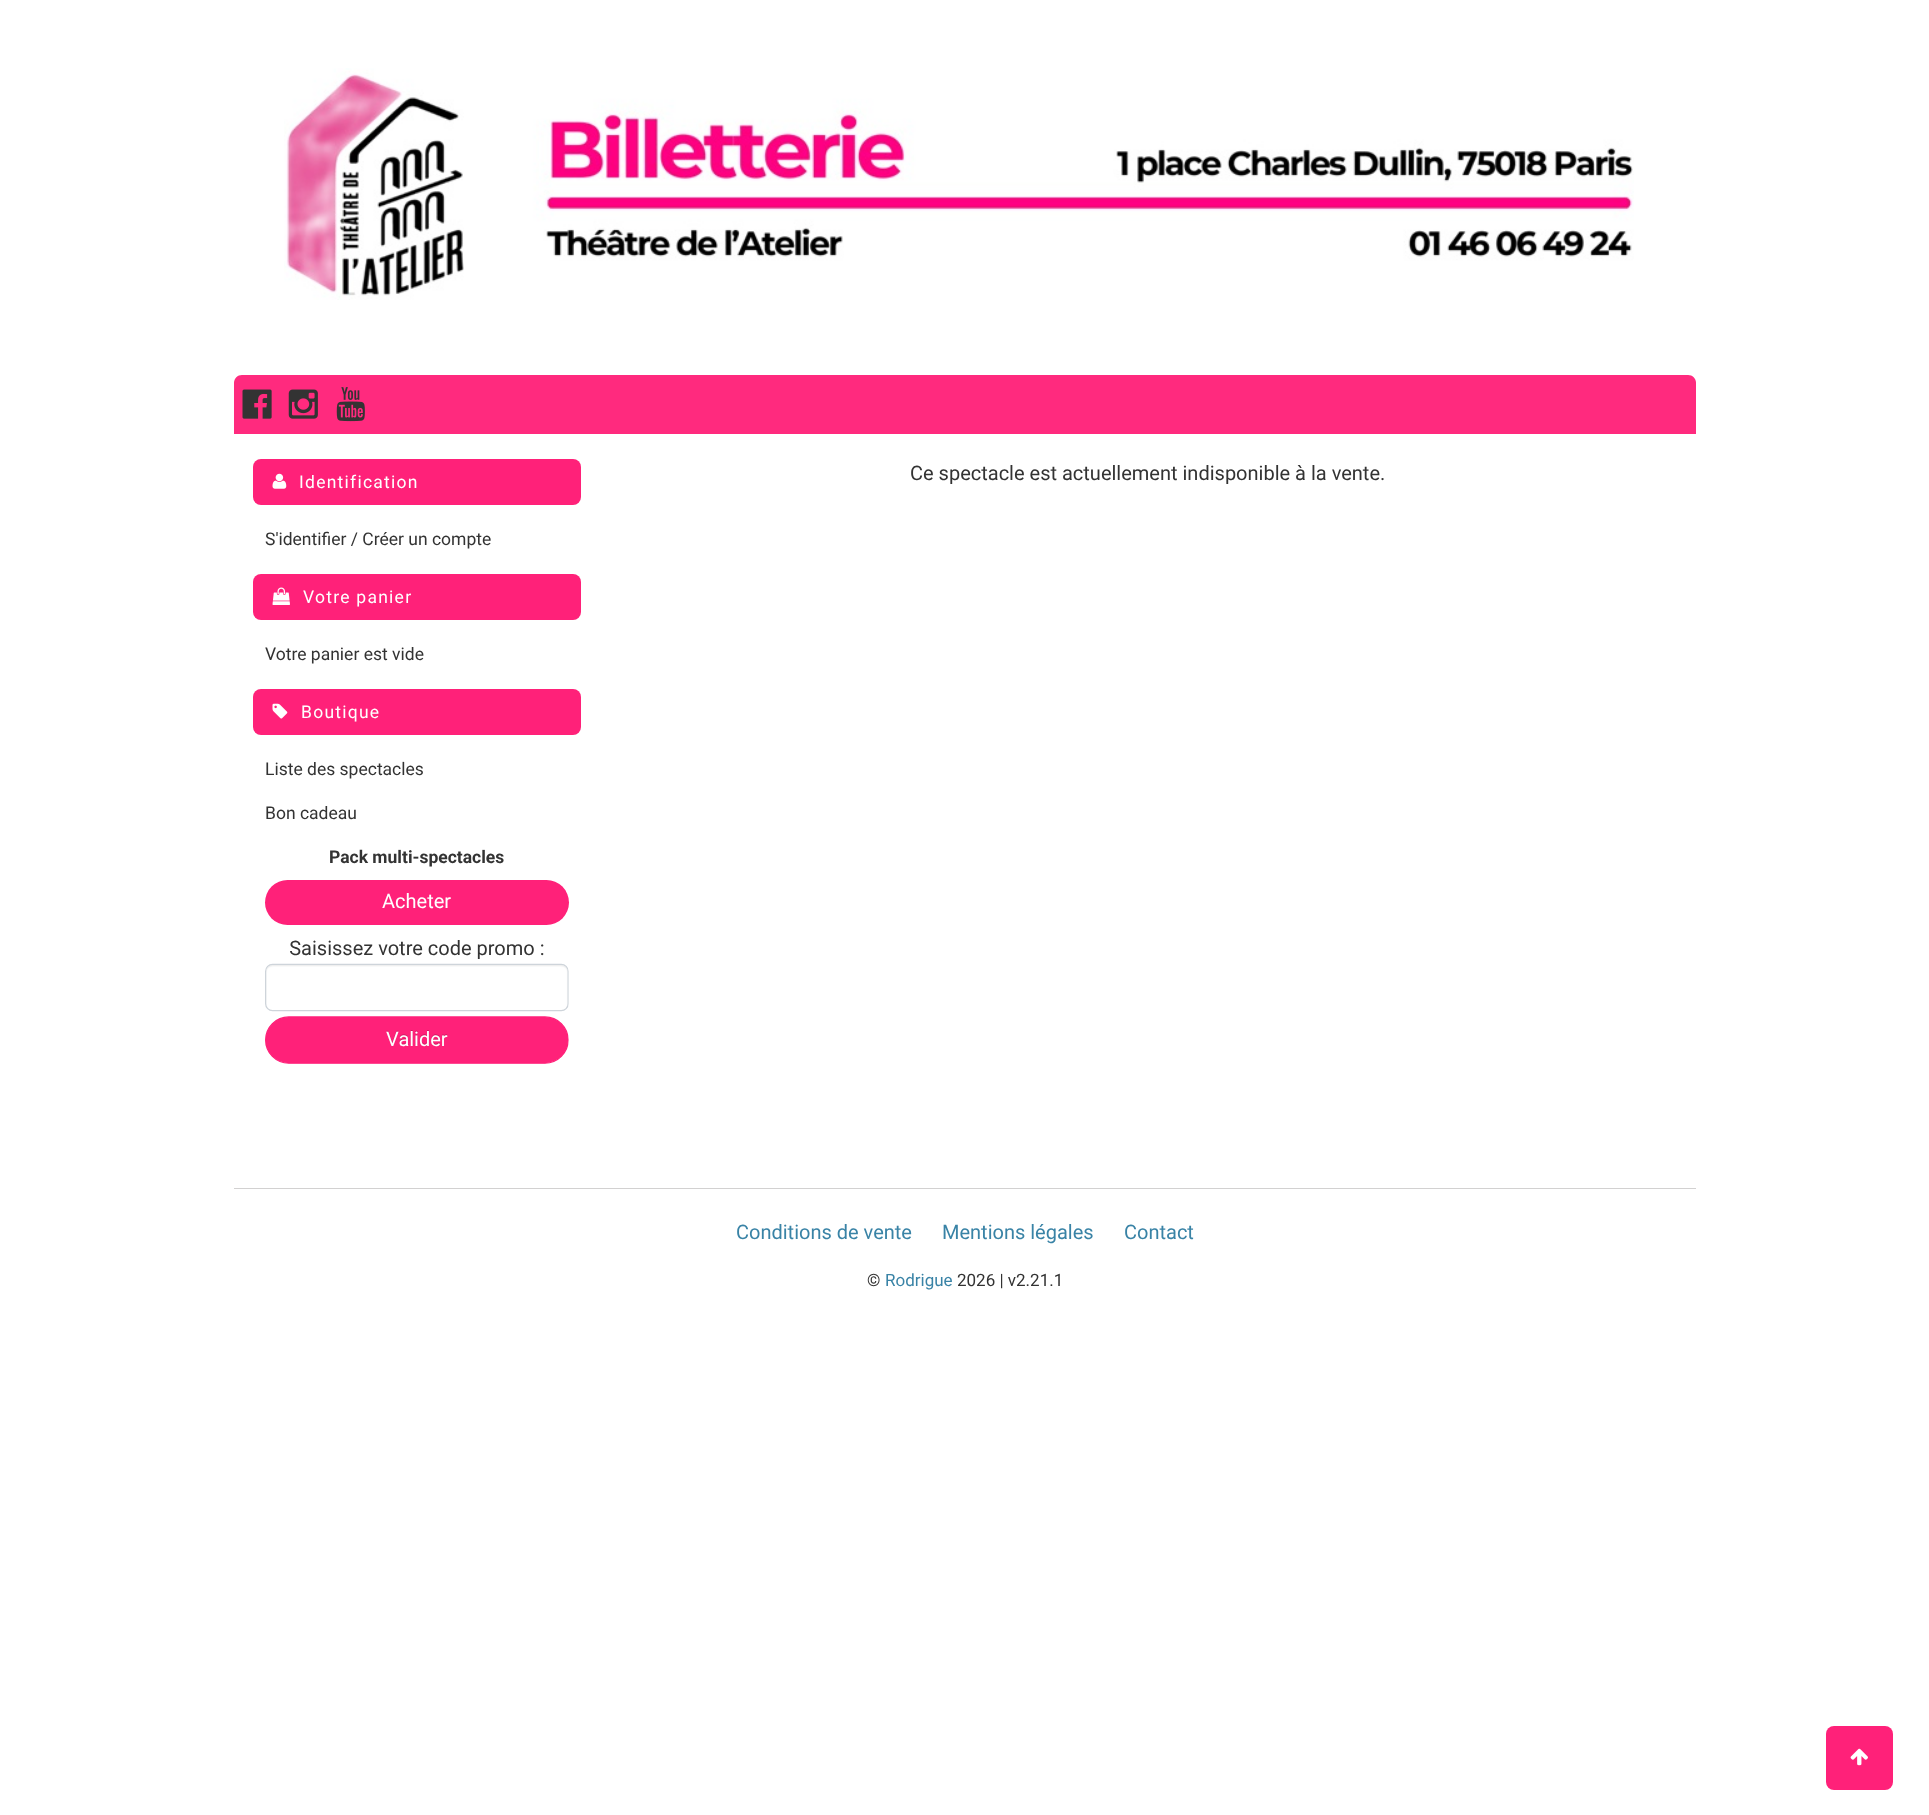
<svg xmlns="http://www.w3.org/2000/svg" width="1929" height="1815">
<style>
.a{font:17.5px Roboto;letter-spacing:1.25px;fill:#fff}
.b{font:17.5px Roboto;fill:#333}
.c{font:bold 17.5px Roboto;fill:#333}
.d{font:20px Roboto;fill:#fff}
.e{font:20px Roboto;fill:#333}
.f{font:20px Roboto;fill:#3983a6}
.g{font:17px Roboto;fill:#333}
.h{font:17px Roboto;fill:#3983a6}
</style>
<rect width="100%" height="100%" fill="#fff"/>
<image href="1.png" x="284" y="68" width="1350" height="232"/>
<path fill="#ff2a7e" d="M242 375h1446c4.5 0 8 3.5 8 8v51h-1462v-51c0-4.5 3.5-8 8-8z"/>
<image href="2.png" x="242" y="389" width="30" height="30"/>
<image href="3.png" x="288" y="389" width="30" height="30"/>
<image href="4.png" x="336" y="387" width="29" height="35"/>
<rect fill="#ff2179" x="253" y="459" width="328" height="46" rx="8"/>
<image href="5.png" x="272" y="473" width="15" height="16"/>
<rect fill="#ff2179" x="253" y="574" width="328" height="46" rx="8"/>
<image href="6.png" x="272" y="587" width="18" height="18"/>
<rect fill="#ff2179" x="253" y="689" width="328" height="46" rx="8"/>
<image href="7.png" x="272" y="703" width="16" height="16"/>
<rect fill="#ff2179" x="265" y="880" width="304" height="45" rx="22.5"/>
<image href="8.png" x="265" y="940" width="304" height="124"/>
<path fill="#d2d1d1" d="M234 1188h1462v1H234z"/>
<rect fill="#ff2179" x="1826" y="1726" width="67" height="64" rx="8"/>
<image href="9.png" x="1850" y="1748" width="18" height="18"/>
<text class="a" x="299" y="488">Identification</text>
<text class="b" x="265" y="545">S'identifier / Créer un compte</text>
<text class="a" x="303" y="603">Votre panier</text>
<text class="b" x="265" y="660">Votre panier est vide</text>
<text class="a" x="301" y="718">Boutique</text>
<text class="b" x="265" y="775">Liste des spectacles</text>
<text class="b" x="265" y="819">Bon cadeau</text>
<text class="c" x="329" y="863">Pack multi-spectacles</text>
<text class="d" x="382" y="908">Acheter</text>
<text class="e" x="910" y="480">Ce spectacle est actuellement indisponible à la vente.</text>
<text class="f" x="736" y="1239">Conditions de vente</text>
<text class="f" x="942" y="1239">Mentions légales</text>
<text class="f" x="1124" y="1239">Contact</text>
<text class="g" x="867" y="1286">©</text>
<text class="h" x="885" y="1286">Rodrigue</text>
<text class="g" x="957" y="1286">2026 | v2.21.1</text>
</svg>
